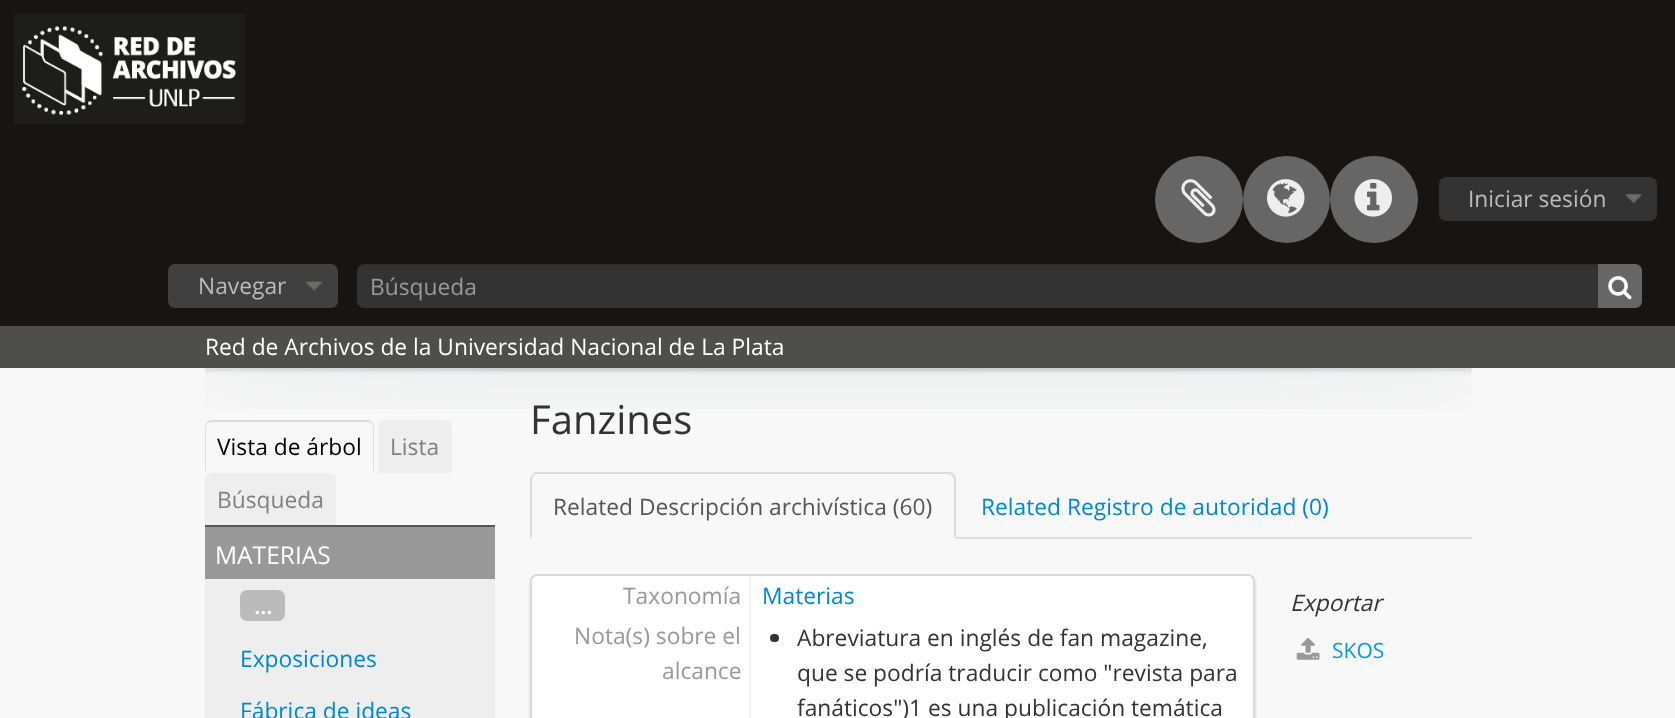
<svg xmlns="http://www.w3.org/2000/svg" width="1675" height="718">
<style>
.a{font:22.75px Open Sans;fill:#bbb}
.b{font:22.75px Open Sans;fill:#999}
.c{font:22.75px Open Sans;fill:#fff}
.d{font:22.75px Open Sans;fill:#000}
.e{font:22.75px Open Sans;fill:#808080}
.f{font:24.5px Open Sans;fill:#fff}
.g{font:bold 22.75px Open Sans;fill:#fff}
.h{font:22.75px Open Sans;fill:#08c}
.i{font:40px Open Sans;fill:#333}
.j{font:22.75px Open Sans;fill:#555}
.k{font:22.75px Open Sans;fill:#333}
.l{font:italic 22.75px Open Sans;fill:#333}
.m{font:21px Open Sans;fill:#049cdb}
</style>
<rect width="100%" height="100%" fill="#f8f8f8"/>
<path fill="#161514" d="M0 0h1675v326H0z"/>
<image href="1.png" x="14" y="14" width="231" height="110"/>
<rect fill="#666" x="1155" y="156" width="88" height="87" rx="43.5"/>
<image href="2.png" x="1181" y="179" width="35" height="38"/>
<circle fill="#666" cx="1286.5" cy="199.5" r="43.5"/>
<image href="3.png" x="1267" y="179" width="38" height="38"/>
<rect fill="#666" x="1330" y="156" width="88" height="87" rx="43.5"/>
<image href="4.png" x="1354" y="179" width="38" height="38"/>
<rect fill="#333" x="1439" y="177" width="218" height="44" rx="7"/>
<image href="5.png" x="1625" y="194" width="17" height="9"/>
<rect fill="#404040" x="168" y="264" width="170" height="44" rx="7"/>
<image href="6.png" x="306" y="281" width="17" height="10"/>
<rect fill="#333" x="357" y="264" width="1285" height="44" rx="7"/>
<path fill="#00000012" d="M364 266h1270c4 0 8 3 8 7v-2c0-4-3-7-7-7h-1271c-4 0-7 3-7 7v2c0-4 3-7 7-7z"/>
<path fill="#666" d="M1598 264h37c4 0 7 3 7 7v30c0 4-3 7-7 7h-37z"/>
<image href="7.png" x="1608" y="276" width="24" height="24"/>
<image href="8.png" x="204" y="367" width="1268" height="42"/>
<path fill="#161514bf" d="M0 326h1675v42H0z"/>
<path fill="#555" d="M205 525h290v2H205z"/>
<path fill="#ddd" d="M212 420c-2 0-4 1-5 2l1 1l4-1h156l3 1l1-1c-1-1-2-2-4-2z"/>
<path fill="#ddd" d="M372 422c1 1 2 3 2 5v45l-1-1v-44c0-2-1-3-2-4z"/>
<path fill="#ddd" d="M207 422c-1 1-2 3-2 5v45l1-1v-44c0-2 1-3 2-4z"/>
<path fill="#eee" d="M385 420h60c4 0 7 3 7 7v46h-74v-46c0-4 3-7 7-7z"/>
<path fill="#eee" d="M212 473h117c4 0 7 3 7 7v45h-131v-45c0-4 3-7 7-7z"/>
<path fill="#eee" d="M205 579h290v139H205z"/>
<path fill="#999" d="M205 527h290v52H205z"/>
<rect fill="#bbb" x="240" y="590" width="45" height="31" rx="7"/>
<path fill="#ddd" d="M956 537h516v2H956z"/>
<path fill="#ddd" d="M537 474c-1 0-3 1-4 2l-1-2l3-2h416l3 2l-2 2c-1-1-2-2-4-2z"/>
<path fill="#ddd" d="M956 477v62l-2-2v-57c0-2-1-3-2-4l2-2z"/>
<path fill="#ddd" d="M530 539v-61l2-4l1 2c0 1-1 2-1 4v57z"/>
<rect fill="#00000033" filter="blur(1px)" x="530" y="576" width="725" height="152" rx="7"/>
<rect fill="#fff" stroke="#d9d9d9" stroke-width="2" x="531" y="575" width="723" height="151" rx="6"/>
<path fill="#f2f2f2" d="M749 576h2v142H749z"/>
<rect fill="#333" x="770" y="634" width="9" height="8" rx="4"/>
<image href="9.png" x="1296" y="638" width="24" height="22"/>
<text class="a" x="1468" y="207">Iniciar sesión</text>
<text class="a" x="198" y="294">Navegar</text>
<text class="b" x="370" y="295">Búsqueda</text>
<text class="c" x="205" y="355">Red de Archivos de la Universidad Nacional de La Plata</text>
<text class="d" x="217" y="455">Vista de árbol</text>
<text class="e" x="390" y="455">Lista</text>
<text class="e" x="217" y="508">Búsqueda</text>
<text class="f" x="215" y="564">MATERIAS</text>
<text class="g" x="254" y="614">...</text>
<text class="h" x="240" y="667">Exposiciones</text>
<text class="h" x="240" y="719">Fábrica de ideas</text>
<text class="i" x="530" y="434">Fanzines</text>
<text class="j" x="553" y="515">Related Descripción archivística (60)</text>
<text class="h" x="981" y="515">Related Registro de autoridad (0)</text>
<text class="b" x="623" y="604">Taxonomía</text>
<text class="h" x="762" y="604">Materias</text>
<text class="b" x="574" y="644">Nota(s) sobre el</text>
<text class="b" x="662" y="679">alcance</text>
<text class="k" x="797" y="646">Abreviatura en inglés de fan magazine,</text>
<text class="k" x="797" y="681">que se podría traducir como "revista para</text>
<text class="k" x="797" y="716">fanáticos")1 es una publicación temática</text>
<text class="l" x="1290" y="611">Exportar</text>
<text class="m" x="1332" y="658">SKOS</text>
</svg>
